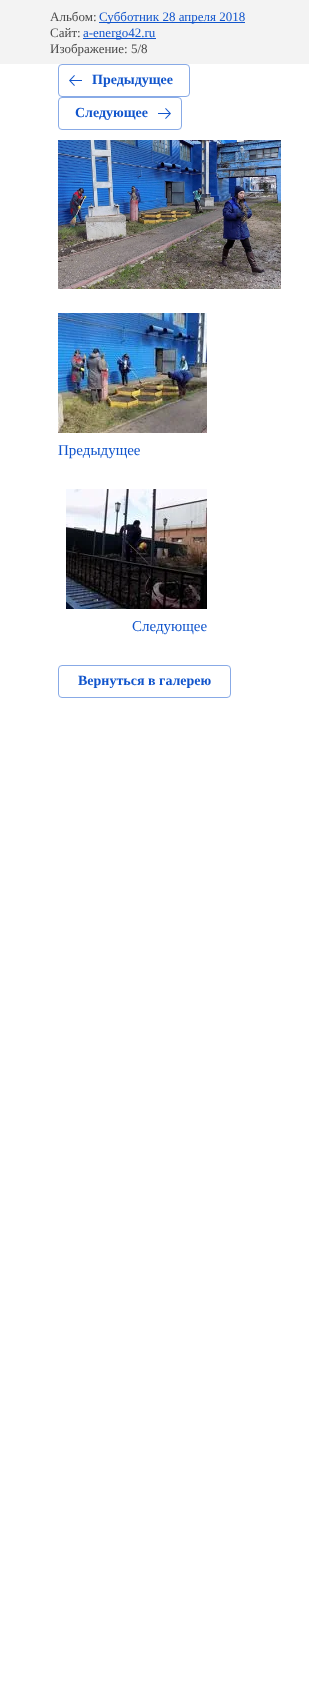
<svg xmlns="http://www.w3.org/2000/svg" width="309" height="1689">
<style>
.a{font:13px Liberation Serif;fill:#484848}
.b{font:13px Liberation Serif;fill:#15c}
.c{font:bold 14px Liberation Serif;fill:#15c}
.d{font:15px Liberation Serif;fill:#15c}
</style>
<rect width="100%" height="100%" fill="#fff"/>
<path fill="#f3f3f3" d="M0 0h309v64H0z"/>
<path fill="#15c" d="M99 22h146v1H99z"/>
<path fill="#15c" d="M83 38h73v1H83z"/>
<rect fill="none" stroke="#88aae6" x="58.5" y="64.5" width="131" height="32" rx="3.5"/>
<image href="1.png" x="69" y="75" width="13" height="11"/>
<rect fill="none" stroke="#88aae6" x="58.5" y="97.5" width="123" height="32" rx="3.5"/>
<image href="2.png" x="158" y="108" width="13" height="11"/>
<image href="3.png" x="58" y="140" width="223" height="149"/>
<image href="4.png" x="58" y="313" width="149" height="120"/>
<image href="5.png" x="66" y="489" width="141" height="120"/>
<rect fill="none" stroke="#88aae6" x="58.5" y="665.5" width="172" height="32" rx="3.5"/>
<text class="a" x="50" y="21">Альбом:</text>
<text class="b" x="99" y="21">Субботник 28 апреля 2018</text>
<text class="a" x="50" y="37">Сайт:</text>
<text class="b" x="83" y="37">a-energo42.ru</text>
<text class="a" x="50" y="53">Изображение: 5/8</text>
<text class="c" x="92" y="84">Предыдущее</text>
<text class="c" x="75" y="117">Следующее</text>
<text class="d" x="58" y="455">Предыдущее</text>
<text class="d" x="132" y="631">Следующее</text>
<text class="c" x="78" y="685">Вернуться в галерею</text>
</svg>
